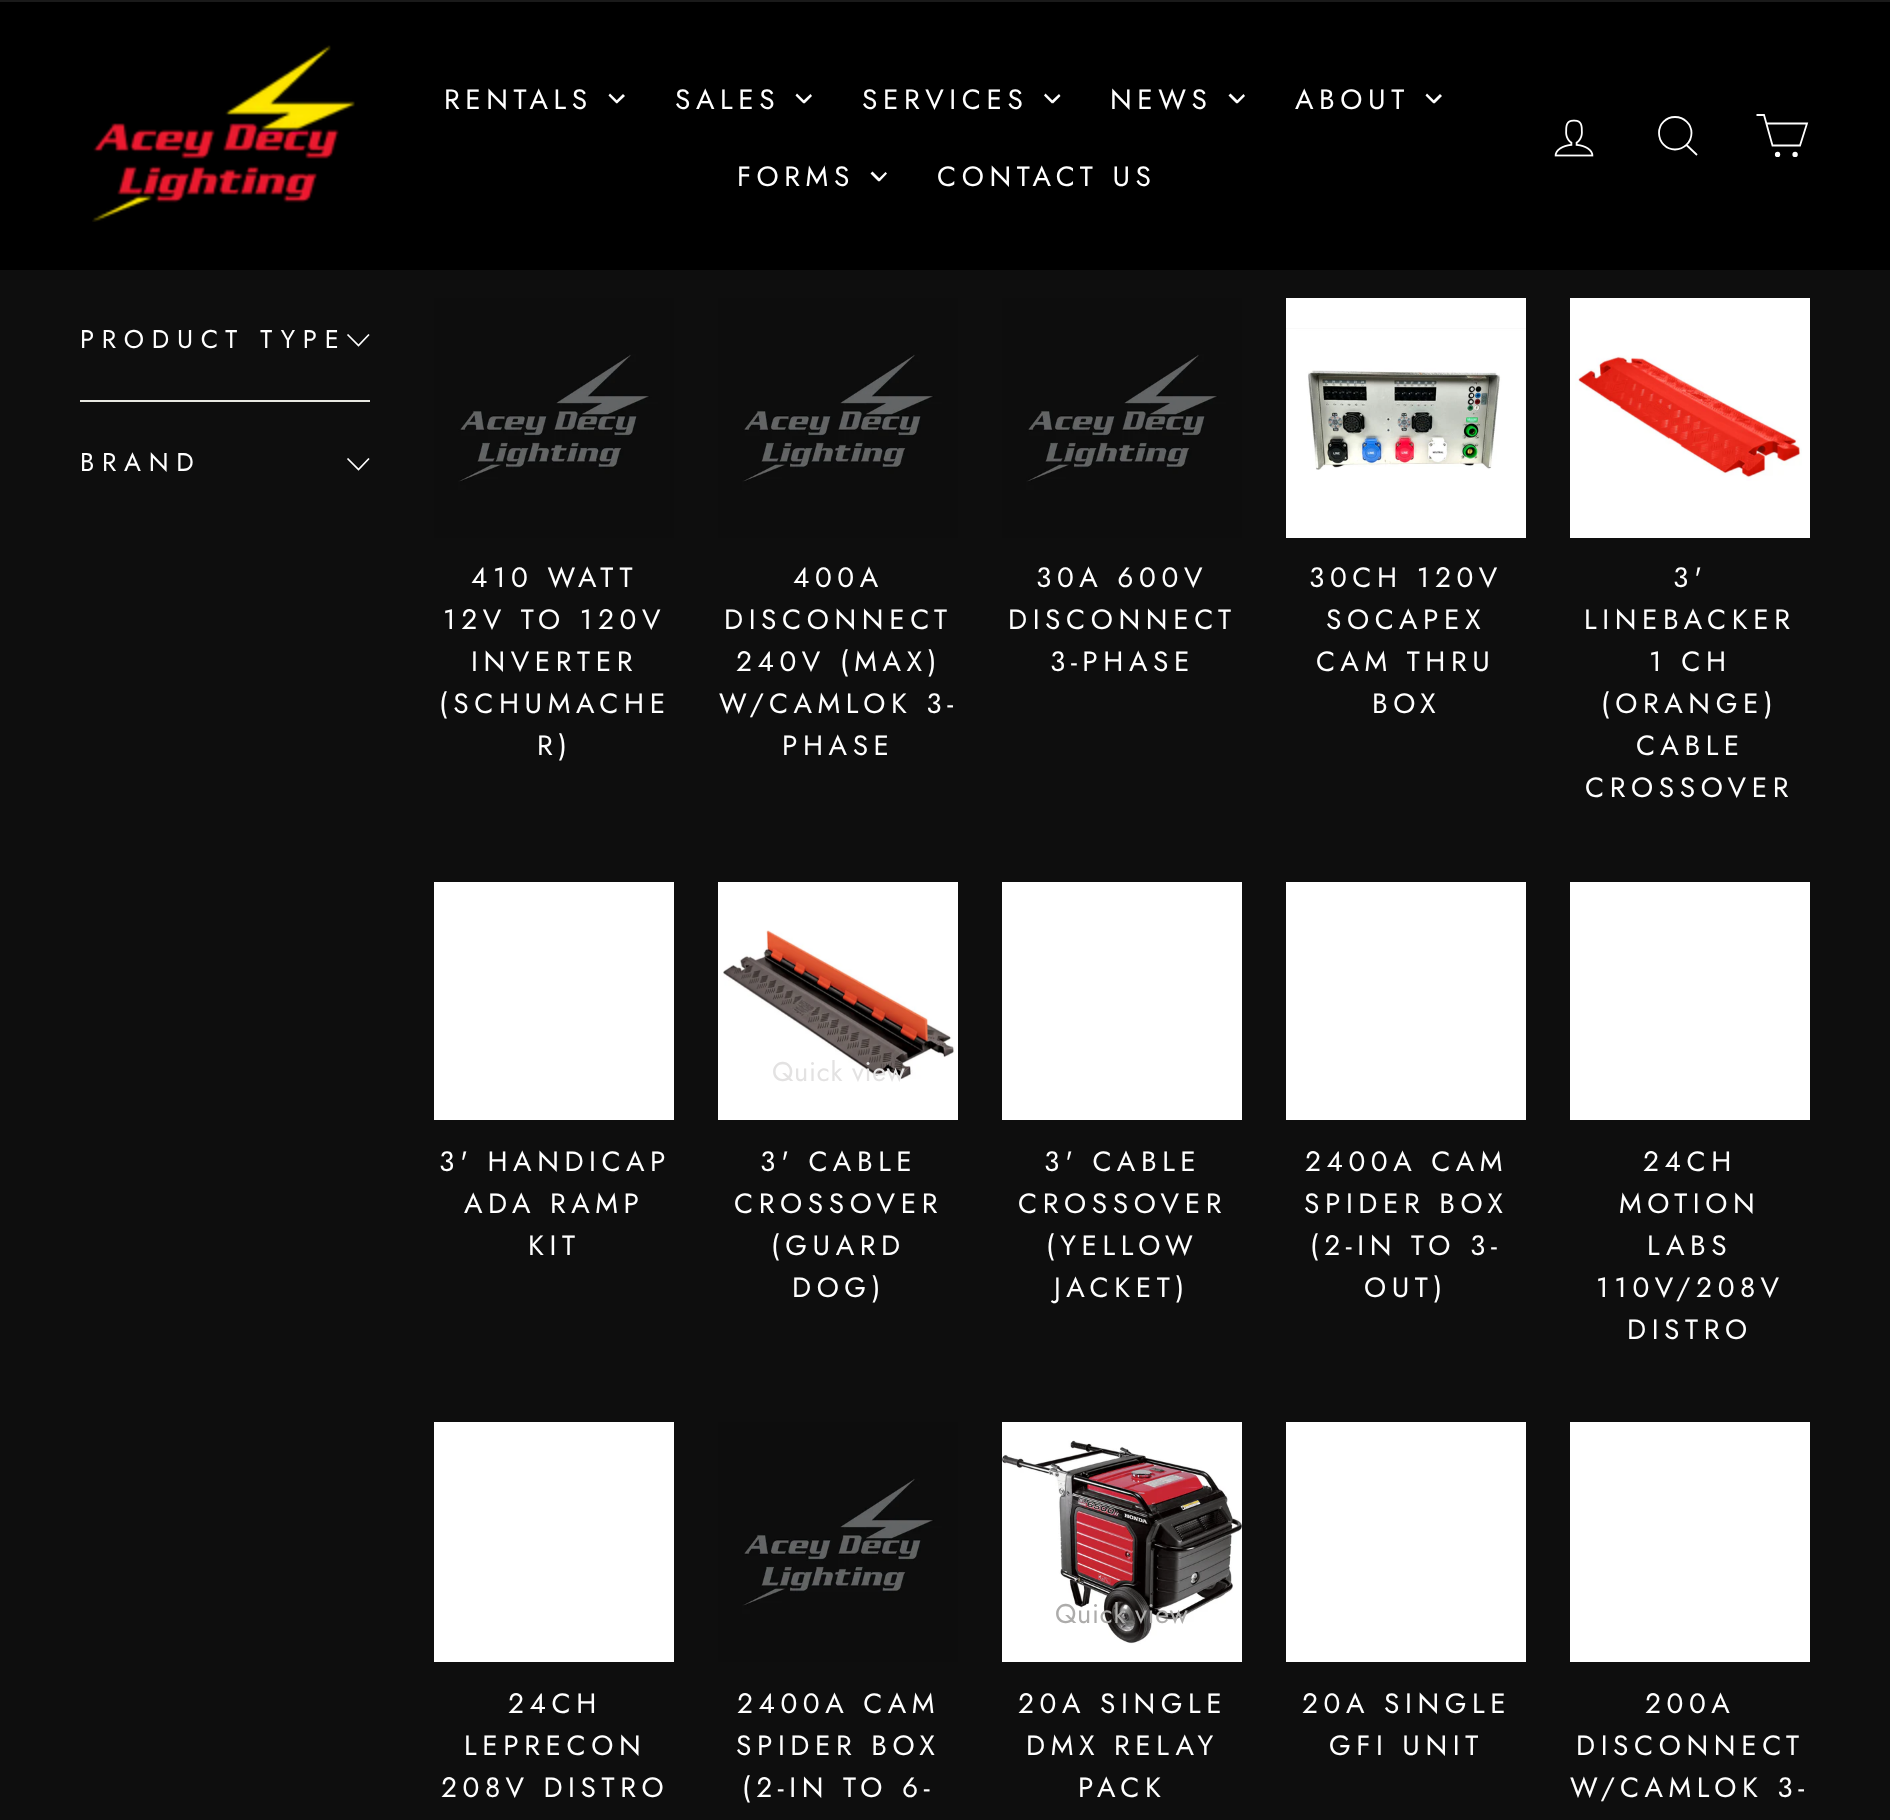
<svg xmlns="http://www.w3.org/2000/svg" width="1890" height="1820">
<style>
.a{font:28px Jost;letter-spacing:5.6px;fill:#fff}
.b{font:25.6px Jost;letter-spacing:7.75px;fill:#fff}
.c{font:27px Jost;letter-spacing:0.75px;fill:#e3e2e2}
.d{font:27px Jost;letter-spacing:0.75px;fill:#adacab}
</style>
<rect width="100%" height="100%" fill="#0e0e0e"/>
<path fill="#000" d="M0 2h1890v268H0z"/>
<path fill="#1a1a1a" d="M0 0h1890v2H0z"/>
<image href="1.png" x="92" y="45" width="263" height="177"/>
<path fill="#fff" d="M623 94l2 2l-8 7.5l-1.5-2z"/>
<path fill="#fff" d="M610 93.5l8 8l-1.5 2l-8-8z"/>
<path fill="#fff" d="M810.5 94l1.5 2l-7.5 7.5l-2-2z"/>
<path fill="#fff" d="M797 93.5l8 8l-1.5 2l-8-8z"/>
<path fill="#fff" d="M1059 94l1.5 2l-7.5 7.5l-2-2z"/>
<path fill="#fff" d="M1045.5 93.5l8 8l-1.5 2l-8-8z"/>
<path fill="#fff" d="M1243.5 94l1.5 2l-7.5 7.5l-1.5-2z"/>
<path fill="#fff" d="M1230.5 93.5l8 8l-2 2l-8-8z"/>
<path fill="#fff" d="M1440 94l2 2l-7.5 7.5l-2-2z"/>
<path fill="#fff" d="M1427 93.5l8 8l-1.5 2l-8-8z"/>
<path fill="#fff" d="M885.5 172l1.5 1.5l-7.5 8l-1.5-2z"/>
<path fill="#fff" d="M872.5 171.5l8 8l-2 2l-8-8z"/>
<image href="2.png" x="1554" y="119" width="40" height="38"/>
<path fill="none" stroke="#fff" stroke-width="1.8" d="M1691.5 133c0 9-7.5 16.5-16.5 16.5c-9 0-16-7.5-16-16.5c0-9 7-16 16-16c9 0 16.5 7 16.5 16zm5.5 22l-10.5-10"/>
<path fill="none" stroke="#fff" stroke-width="1.8" d="M1766 123.5h41l-7 22h-27.5l-8.5-30.5h-7.5"/>
<circle fill="#fff" stroke="#fff" stroke-width="1.8" cx="1777.6" cy="154.4" r="1.8"/>
<circle fill="#fff" stroke="#fff" stroke-width="1.8" cx="1795.1" cy="154.4" r="1.8"/>
<path fill="none" stroke="#fff" stroke-width="1.7" d="M347.5 334.5l11 11l10.5-11"/>
<path fill="#e8e8e1" d="M80 400h290v2H80z"/>
<path fill="none" stroke="#fff" stroke-width="1.7" d="M347.5 458.5l11 11l10.5-11"/>
<image href="3.png" x="434" y="298" width="240" height="240"/>
<image href="3.png" x="718" y="298" width="240" height="240"/>
<image href="3.png" x="1002" y="298" width="240" height="240"/>
<path fill="#fff" d="M1286 298h240v240H1286z"/>
<image href="4.png" x="1286" y="328" width="240" height="142"/>
<path fill="#fff" d="M1570 298h240v240H1570z"/>
<image href="5.png" x="1575" y="355" width="227" height="126"/>
<path fill="#fff" d="M434 882h240v238H434z"/>
<path fill="#fff" d="M718 882h240v238H718z"/>
<image href="6.png" x="723" y="930" width="232" height="149"/>
<path fill="#fff" d="M1002 882h240v238H1002z"/>
<path fill="#fff" d="M1286 882h240v238H1286z"/>
<path fill="#fff" d="M1570 882h240v238H1570z"/>
<path fill="#fff" d="M434 1422h240v240H434z"/>
<image href="3.png" x="718" y="1422" width="240" height="240"/>
<path fill="#fff" d="M1002 1422h240v240H1002z"/>
<image href="7.png" x="1002" y="1440" width="240" height="204"/>
<path fill="#fff" d="M1286 1422h240v240H1286z"/>
<path fill="#fff" d="M1570 1422h240v240H1570z"/>
<text class="a" x="444" y="109">RENTALS</text>
<text class="a" x="675" y="109">SALES</text>
<text class="a" x="862" y="109">SERVICES</text>
<text class="a" x="1110" y="109">NEWS</text>
<text class="a" x="1295" y="109">ABOUT</text>
<text class="a" x="737" y="186">FORMS</text>
<text class="a" x="937" y="186">CONTACT US</text>
<text class="b" x="80" y="348">PRODUCT TYPE</text>
<text class="b" x="80" y="471">BRAND</text>
<text class="a" x="471" y="587">410 WATT</text>
<text class="a" x="443" y="629">12V TO 120V</text>
<text class="a" x="471" y="671">INVERTER</text>
<text class="a" x="439" y="713">(SCHUMACHE</text>
<text class="a" x="537" y="755">R)</text>
<text class="a" x="793" y="587">400A</text>
<text class="a" x="724" y="629">DISCONNECT</text>
<text class="a" x="736" y="671">240V (MAX)</text>
<text class="a" x="719" y="713">W/CAMLOK 3-</text>
<text class="a" x="782" y="755">PHASE</text>
<text class="a" x="1036" y="587">30A 600V</text>
<text class="a" x="1008" y="629">DISCONNECT</text>
<text class="a" x="1050" y="671">3-PHASE</text>
<text class="a" x="1309" y="587">30CH 120V</text>
<text class="a" x="1326" y="629">SOCAPEX</text>
<text class="a" x="1316" y="671">CAM THRU</text>
<text class="a" x="1372" y="713">BOX</text>
<text class="a" x="1673" y="587">3'</text>
<text class="a" x="1584" y="629">LINEBACKER</text>
<text class="a" x="1649" y="671">1 CH</text>
<text class="a" x="1601" y="713">(ORANGE)</text>
<text class="a" x="1636" y="755">CABLE</text>
<text class="a" x="1585" y="797">CROSSOVER</text>
<text class="a" x="439" y="1171">3' HANDICAP</text>
<text class="a" x="464" y="1213">ADA RAMP</text>
<text class="a" x="528" y="1255">KIT</text>
<text class="c" x="772" y="1081">Quick view</text>
<text class="a" x="760" y="1171">3' CABLE</text>
<text class="a" x="734" y="1213">CROSSOVER</text>
<text class="a" x="771" y="1255">(GUARD</text>
<text class="a" x="792" y="1297">DOG)</text>
<text class="a" x="1044" y="1171">3' CABLE</text>
<text class="a" x="1018" y="1213">CROSSOVER</text>
<text class="a" x="1046" y="1255">(YELLOW</text>
<text class="a" x="1054" y="1297">JACKET)</text>
<text class="a" x="1305" y="1171">2400A CAM</text>
<text class="a" x="1304" y="1213">SPIDER BOX</text>
<text class="a" x="1310" y="1255">(2-IN TO 3-</text>
<text class="a" x="1364" y="1297">OUT)</text>
<text class="a" x="1643" y="1171">24CH</text>
<text class="a" x="1619" y="1213">MOTION</text>
<text class="a" x="1647" y="1255">LABS</text>
<text class="a" x="1596" y="1297">110V/208V</text>
<text class="a" x="1627" y="1339">DISTRO</text>
<text class="a" x="508" y="1713">24CH</text>
<text class="a" x="464" y="1755">LEPRECON</text>
<text class="a" x="441" y="1797">208V DISTRO</text>
<text class="a" x="737" y="1713">2400A CAM</text>
<text class="a" x="736" y="1755">SPIDER BOX</text>
<text class="a" x="742" y="1797">(2-IN TO 6-</text>
<text class="d" x="1055" y="1623">Quick view</text>
<text class="a" x="1018" y="1713">20A SINGLE</text>
<text class="a" x="1026" y="1755">DMX RELAY</text>
<text class="a" x="1078" y="1797">PACK</text>
<text class="a" x="1302" y="1713">20A SINGLE</text>
<text class="a" x="1329" y="1755">GFI UNIT</text>
<text class="a" x="1645" y="1713">200A</text>
<text class="a" x="1576" y="1755">DISCONNECT</text>
<text class="a" x="1570" y="1797">W/CAMLOK 3-</text>
</svg>
